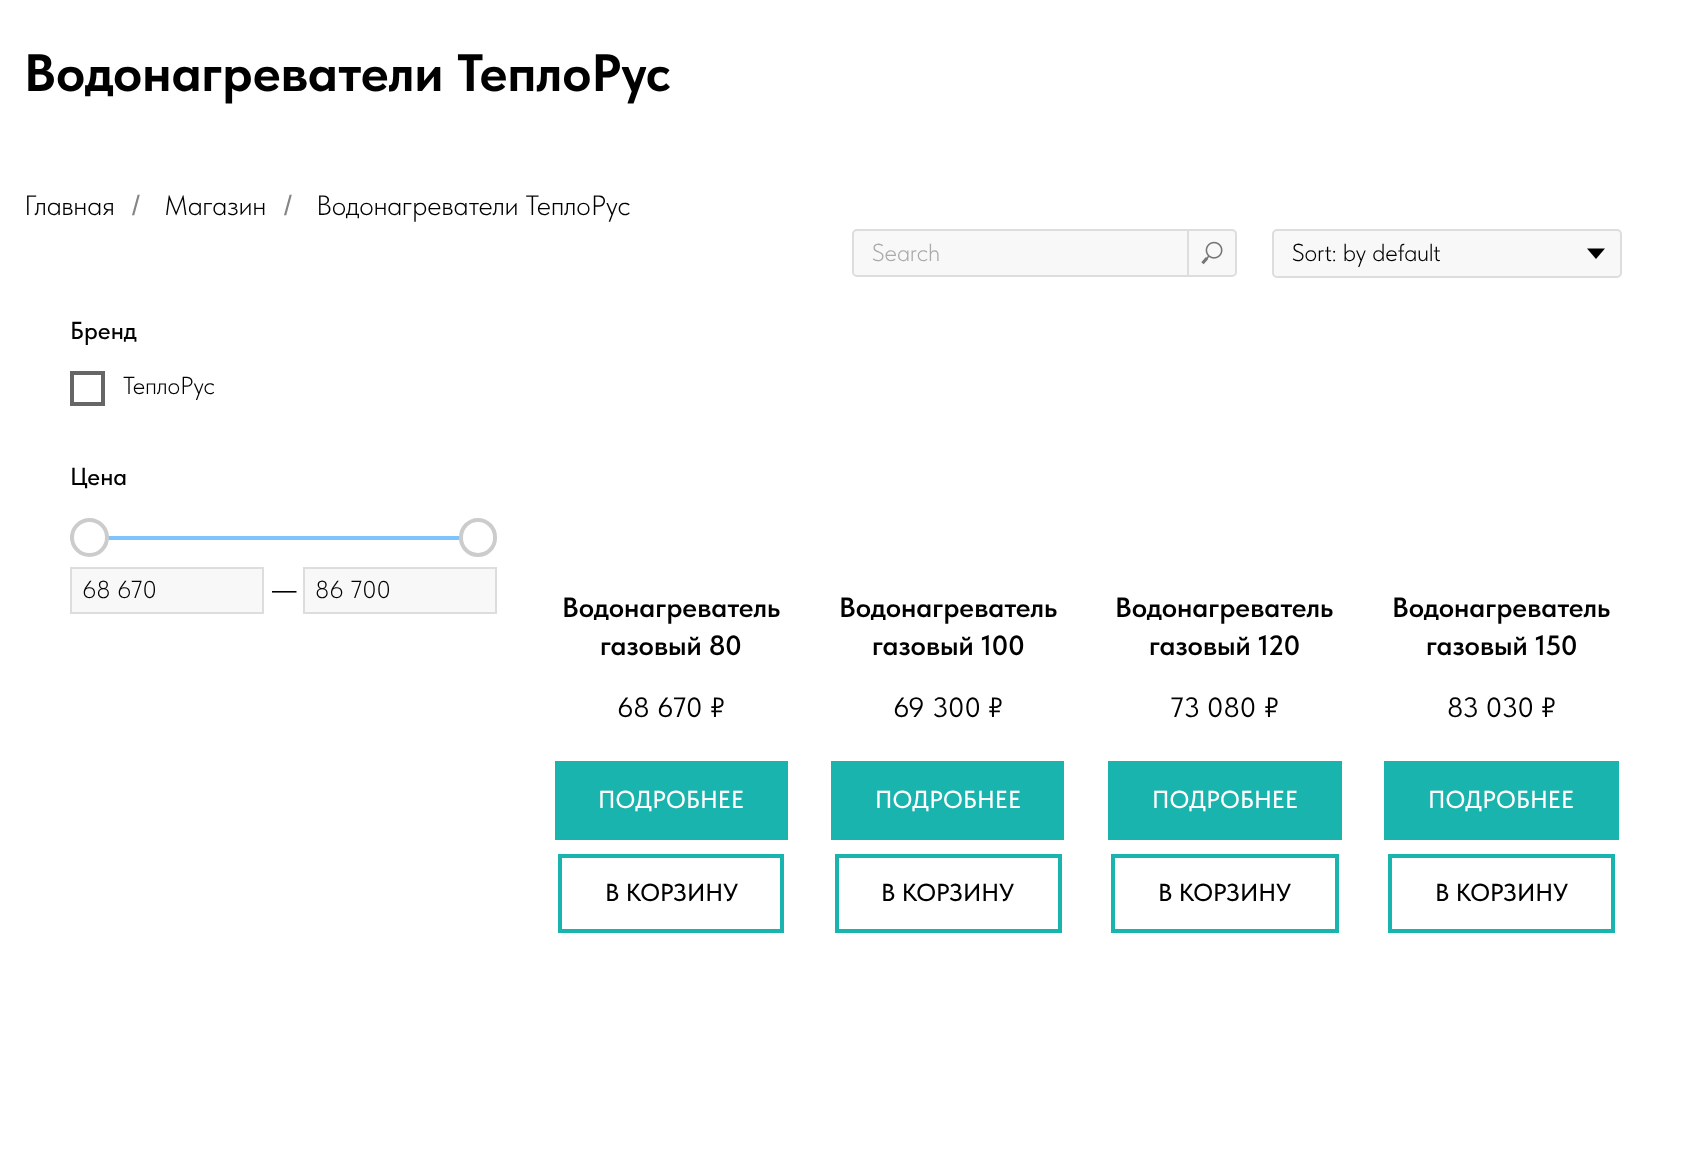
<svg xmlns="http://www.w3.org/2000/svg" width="1691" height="1153">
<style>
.a{font:bold 52.5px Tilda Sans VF;fill:#000}
.b{font:300 28px Tilda Sans VF;fill:#000}
.c{font:28px Liberation Sans;fill:#858585}
.d{font:300 24.5px Tilda Sans VF;fill:#aaa}
.e{font:300 24.5px Tilda Sans VF;fill:#000}
.f{font:500 24.5px Tilda Sans VF;fill:#000}
.g{font:24.5px Liberation Sans;fill:#000}
.h{font:600 28px Tilda Sans VF;fill:#000}
.i{font:28px Tilda Sans VF;fill:#000}
.j{font:500 24.5px Tilda Sans VF;fill:#fff}
</style>
<rect width="100%" height="100%" fill="#fff"/>
<rect fill="#f8f8f8" stroke="#ddd" stroke-width="2" x="853" y="230" width="383" height="46" rx="4"/>
<path fill="#ddd" d="M1187 229h2v48H1187z"/>
<image href="1.png" x="1201" y="241" width="22" height="24"/>
<rect fill="#f8f8f8" stroke="#ddd" stroke-width="2" x="1273" y="230" width="348" height="47" rx="4"/>
<path fill="#000" d="M1587 248.5h18l-9 10.5z"/>
<path fill="none" stroke="#666" stroke-width="4" d="M72 373h31v31H72z"/>
<rect fill="#7dc3fe" x="70" y="536" width="427" height="4" rx="2"/>
<circle fill="#fff" cx="89.5" cy="537.5" r="19.5"/>
<circle fill="none" stroke="#00000033" stroke-width="4" cx="89.5" cy="537.5" r="17.5"/>
<rect fill="#fff" x="459" y="518" width="38" height="39" rx="19"/>
<rect fill="none" stroke="#00000033" stroke-width="4" x="461" y="520" width="34" height="35" rx="17"/>
<path fill="#f8f8f8" stroke="#ddd" stroke-width="2" d="M71 568h192v45H71z"/>
<path fill="#f8f8f8" stroke="#ddd" stroke-width="2" d="M304 568h192v45H304z"/>
<path fill="#1ab4af" d="M555 761h233v79H555z"/>
<path fill="none" stroke="#1ab4af" stroke-width="4" d="M560 856h222v75H560z"/>
<path fill="#1ab4af" d="M831 761h233v79H831z"/>
<path fill="none" stroke="#1ab4af" stroke-width="4" d="M837 856h223v75H837z"/>
<path fill="#1ab4af" d="M1108 761h234v79H1108z"/>
<path fill="none" stroke="#1ab4af" stroke-width="4" d="M1113 856h224v75H1113z"/>
<path fill="#1ab4af" d="M1384 761h235v79H1384z"/>
<path fill="none" stroke="#1ab4af" stroke-width="4" d="M1390 856h223v75H1390z"/>
<text class="a" x="24" y="91">Водонагреватели ТеплоРус</text>
<text class="b" x="24" y="215">Главная</text>
<text class="c" x="132" y="215">/</text>
<text class="b" x="164" y="215">Магазин</text>
<text class="c" x="284" y="215">/</text>
<text class="b" x="316" y="215">Водонагреватели ТеплоРус</text>
<text class="d" x="872" y="261">Search</text>
<text class="e" x="1292" y="261">Sort: by default</text>
<text class="f" x="70" y="339">Бренд</text>
<text class="e" x="123" y="394">ТеплоРус</text>
<text class="f" x="70" y="485">Цена</text>
<text class="e" x="82" y="598">68 670</text>
<text class="g" x="272" y="598">—</text>
<text class="e" x="315" y="598">86 700</text>
<text class="h" x="562" y="617">Водонагреватель</text>
<text class="h" x="600" y="655">газовый 80</text>
<text class="i" x="617" y="717">68 670</text>
<text class="i" x="710" y="717">₽</text>
<text class="j" x="598" y="808">ПОДРОБНЕЕ</text>
<text class="f" x="605" y="901">В КОРЗИНУ</text>
<text class="h" x="839" y="617">Водонагреватель</text>
<text class="h" x="872" y="655">газовый 100</text>
<text class="i" x="893" y="717">69 300</text>
<text class="i" x="988" y="717">₽</text>
<text class="j" x="875" y="808">ПОДРОБНЕЕ</text>
<text class="f" x="881" y="901">В КОРЗИНУ</text>
<text class="h" x="1115" y="617">Водонагреватель</text>
<text class="h" x="1149" y="655">газовый 120</text>
<text class="i" x="1170" y="717">73 080</text>
<text class="i" x="1264" y="717">₽</text>
<text class="j" x="1152" y="808">ПОДРОБНЕЕ</text>
<text class="f" x="1158" y="901">В КОРЗИНУ</text>
<text class="h" x="1392" y="617">Водонагреватель</text>
<text class="h" x="1426" y="655">газовый 150</text>
<text class="i" x="1447" y="717">83 030</text>
<text class="i" x="1541" y="717">₽</text>
<text class="j" x="1428" y="808">ПОДРОБНЕЕ</text>
<text class="f" x="1435" y="901">В КОРЗИНУ</text>
</svg>
